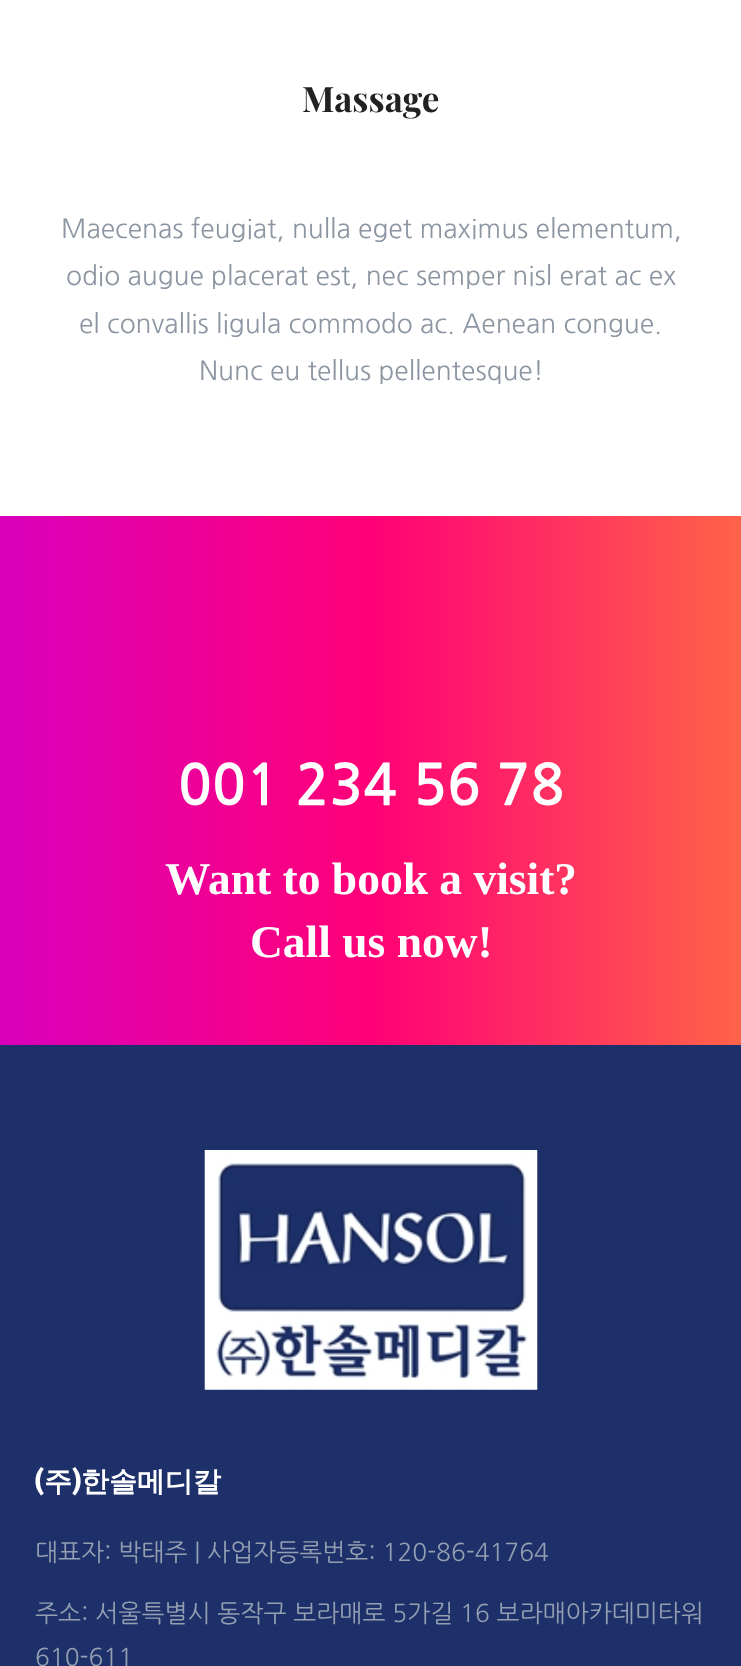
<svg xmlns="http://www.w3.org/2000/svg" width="741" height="1666">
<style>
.a{font:bold 35px Playfair Display;fill:#222}
.b{font:26.25px NanumGothic;fill:#8c95a2}
.c{font:bold 56px NanumGothic;fill:#fff}
.d{font:bold 45.5px Liberation Serif;fill:#fff}
.e{font:bold 28px Fira Sans;fill:#fff}
.f{font:bold 28px WenQuanYi Zen Hei;fill:#fff}
.g{font:24.5px NanumGothic;fill:#949fb2}
</style>
<defs>
<linearGradient id="g1" gradientUnits="userSpaceOnUse" x1="0" y1="781" x2="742" y2="781"><stop offset="0" stop-color="#d900bc"/><stop offset="0.5" stop-color="#f07"/><stop offset="1" stop-color="#ff6348"/></linearGradient>
</defs>
<rect width="100%" height="100%" fill="#fff"/>
<path fill="url(#g1)" d="M0 516h741v529H0z"/>
<path fill="#1e3069" d="M0 1045h741v621H0z"/>
<image href="1.png" x="204" y="1150" width="334" height="240"/>
<text class="a" x="302" y="112">Massage</text>
<text class="b" x="61" y="238">Maecenas feugiat, nulla eget maximus elementum,</text>
<text class="b" x="66" y="285">odio augue placerat est, nec semper nisl erat ac ex</text>
<text class="b" x="79" y="333">el convallis ligula commodo ac. Aenean congue.</text>
<text class="b" x="199" y="380">Nunc eu tellus pellentesque!</text>
<text class="c" x="178" y="805">001 234 56 78</text>
<text class="d" x="165" y="894">Want to book a visit?</text>
<text class="d" x="250" y="957">Call us now!</text>
<text class="e" x="35" y="1491">(</text>
<text class="f" x="44" y="1491">주</text>
<text class="e" x="72" y="1491">)</text>
<text class="f" x="81" y="1491">한솔메디칼</text>
<text class="g" x="35" y="1561">대표자: 박태주 | 사업자등록번호: 120-86-41764</text>
<text class="g" x="35" y="1622">주소: 서울특별시 동작구 보라매로 5가길 16 보라매아카데미타워</text>
<text class="g" x="35" y="1666">610-611</text>
</svg>
